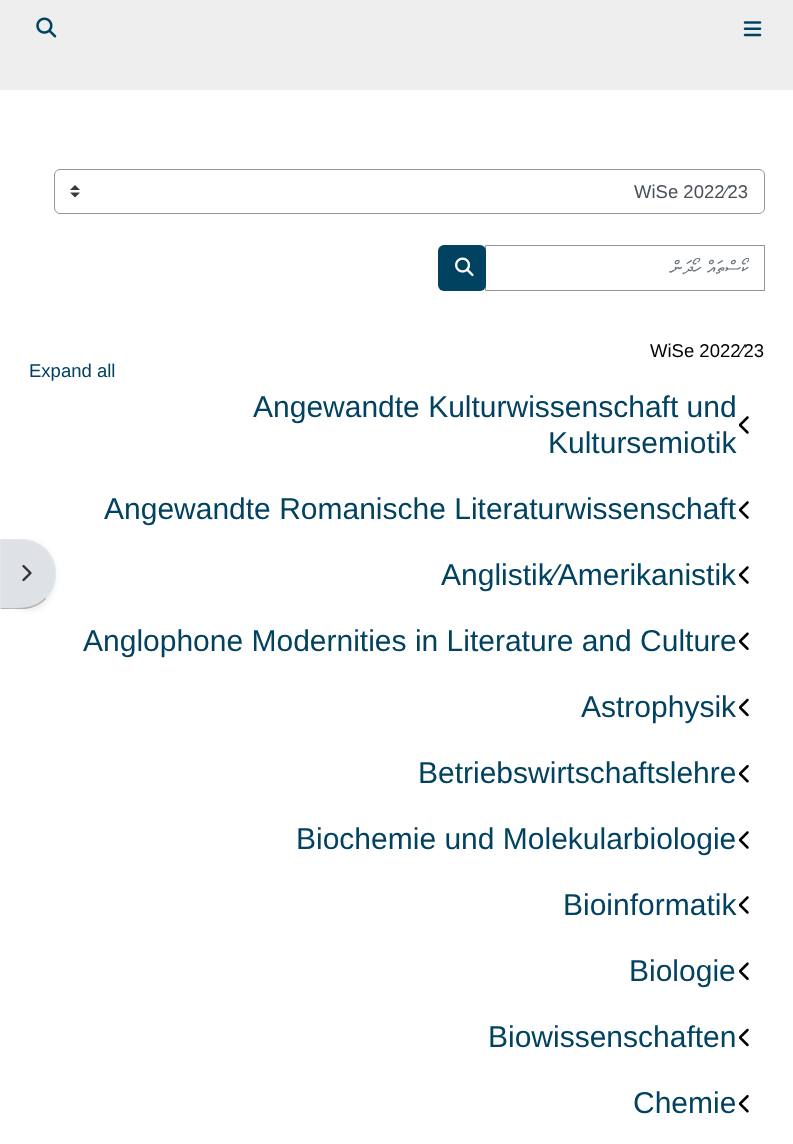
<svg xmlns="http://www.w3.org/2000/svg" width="793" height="1144">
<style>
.a{font:18.5px Liberation Sans;fill:#495057}
.b{font:18.5px FreeSerif;direction:rtl;fill:#6a737b}
.c{font:18.5px Liberation Sans;fill:#000}
.d{font:18.5px Liberation Sans;fill:#004260}
.e{font:30px Liberation Sans;fill:#004260}
</style>
<defs>
<clipPath id="clip1"><path d="M501 258h248v21H501z"/></clipPath>
</defs>
<rect width="100%" height="100%" fill="#fff"/>
<path fill="#eee" d="M0 0h793v90H0z"/>
<image href="1.png" x="36" y="17" width="21" height="21"/>
<image href="2.png" x="743" y="21" width="19" height="16"/>
<image href="3.png" x="70" y="185" width="10" height="13"/>
<rect fill="none" stroke="#8f959e" x="54.5" y="169.5" width="710" height="44" rx="5.5"/>
<path fill="none" stroke="#8f959e" d="M485.5 245.5h279v45H485.5z"/>
<rect fill="#014260" x="438" y="245" width="48" height="46" rx="6"/>
<image href="4.png" x="455" y="257" width="19" height="20"/>
<image href="5.png" x="739" y="416" width="10" height="18"/>
<image href="6.png" x="739" y="501" width="10" height="18"/>
<image href="5.png" x="739" y="566" width="10" height="18"/>
<image href="7.png" x="739" y="632" width="10" height="18"/>
<image href="8.png" x="739" y="698" width="10" height="19"/>
<image href="9.png" x="739" y="765" width="10" height="18"/>
<image href="5.png" x="739" y="831" width="10" height="18"/>
<image href="5.png" x="739" y="896" width="10" height="18"/>
<image href="7.png" x="739" y="962" width="10" height="18"/>
<image href="8.png" x="739" y="1028" width="10" height="19"/>
<image href="9.png" x="739" y="1095" width="10" height="18"/>
<rect fill="#00000012" filter="blur(2.5px)" y="541" width="56" height="70" rx="35"/>
<path fill="#dee2e6" d="M0 539h21c19.5 0 35 15.5 35 35c0 19.5-15.5 35-35 35h-21z"/>
<path fill="#e6e6e6" d="M46 549c-12-12-30-10-46-10l1 1c16 0 32-2 44 10z"/>
<path fill="#e6e6e6" d="M46 549c13 13 13 36 0 50l-1-1c13-13 13-35 0-48z"/>
<path fill="#b3b3b3" d="M25 609h-25l1-1c16 0 32 2 44-10l1 1c-5 5-12 9-21 10z"/>
<path fill="#e6e6e6" d="M1 540l-1-1v70l1-1z"/>
<image href="10.png" x="22" y="564" width="10" height="18"/>
<text class="a" x="634" y="198">WiSe 2022∕23</text>
<g clip-path="url(#clip1)">
<text class="b" x="749" y="274" word-spacing="1">ކޯސްތައް ހޯދަން</text>
</g>
<text class="c" x="650" y="357">WiSe 2022∕23</text>
<text class="d" x="29" y="377">Expand all</text>
<text class="e" x="253" y="417">Angewandte Kulturwissenschaft und</text>
<text class="e" x="548" y="453">Kultursemiotik</text>
<text class="e" x="104" y="519">Angewandte Romanische Literaturwissenschaft</text>
<text class="e" x="441" y="585">Anglistik∕Amerikanistik</text>
<text class="e" x="83" y="651">Anglophone Modernities in Literature and Culture</text>
<text class="e" x="581" y="717">Astrophysik</text>
<text class="e" x="418" y="783">Betriebswirtschaftslehre</text>
<text class="e" x="296" y="849">Biochemie und Molekularbiologie</text>
<text class="e" x="563" y="915">Bioinformatik</text>
<text class="e" x="629" y="981">Biologie</text>
<text class="e" x="488" y="1047">Biowissenschaften</text>
<text class="e" x="633" y="1113">Chemie</text>
</svg>
